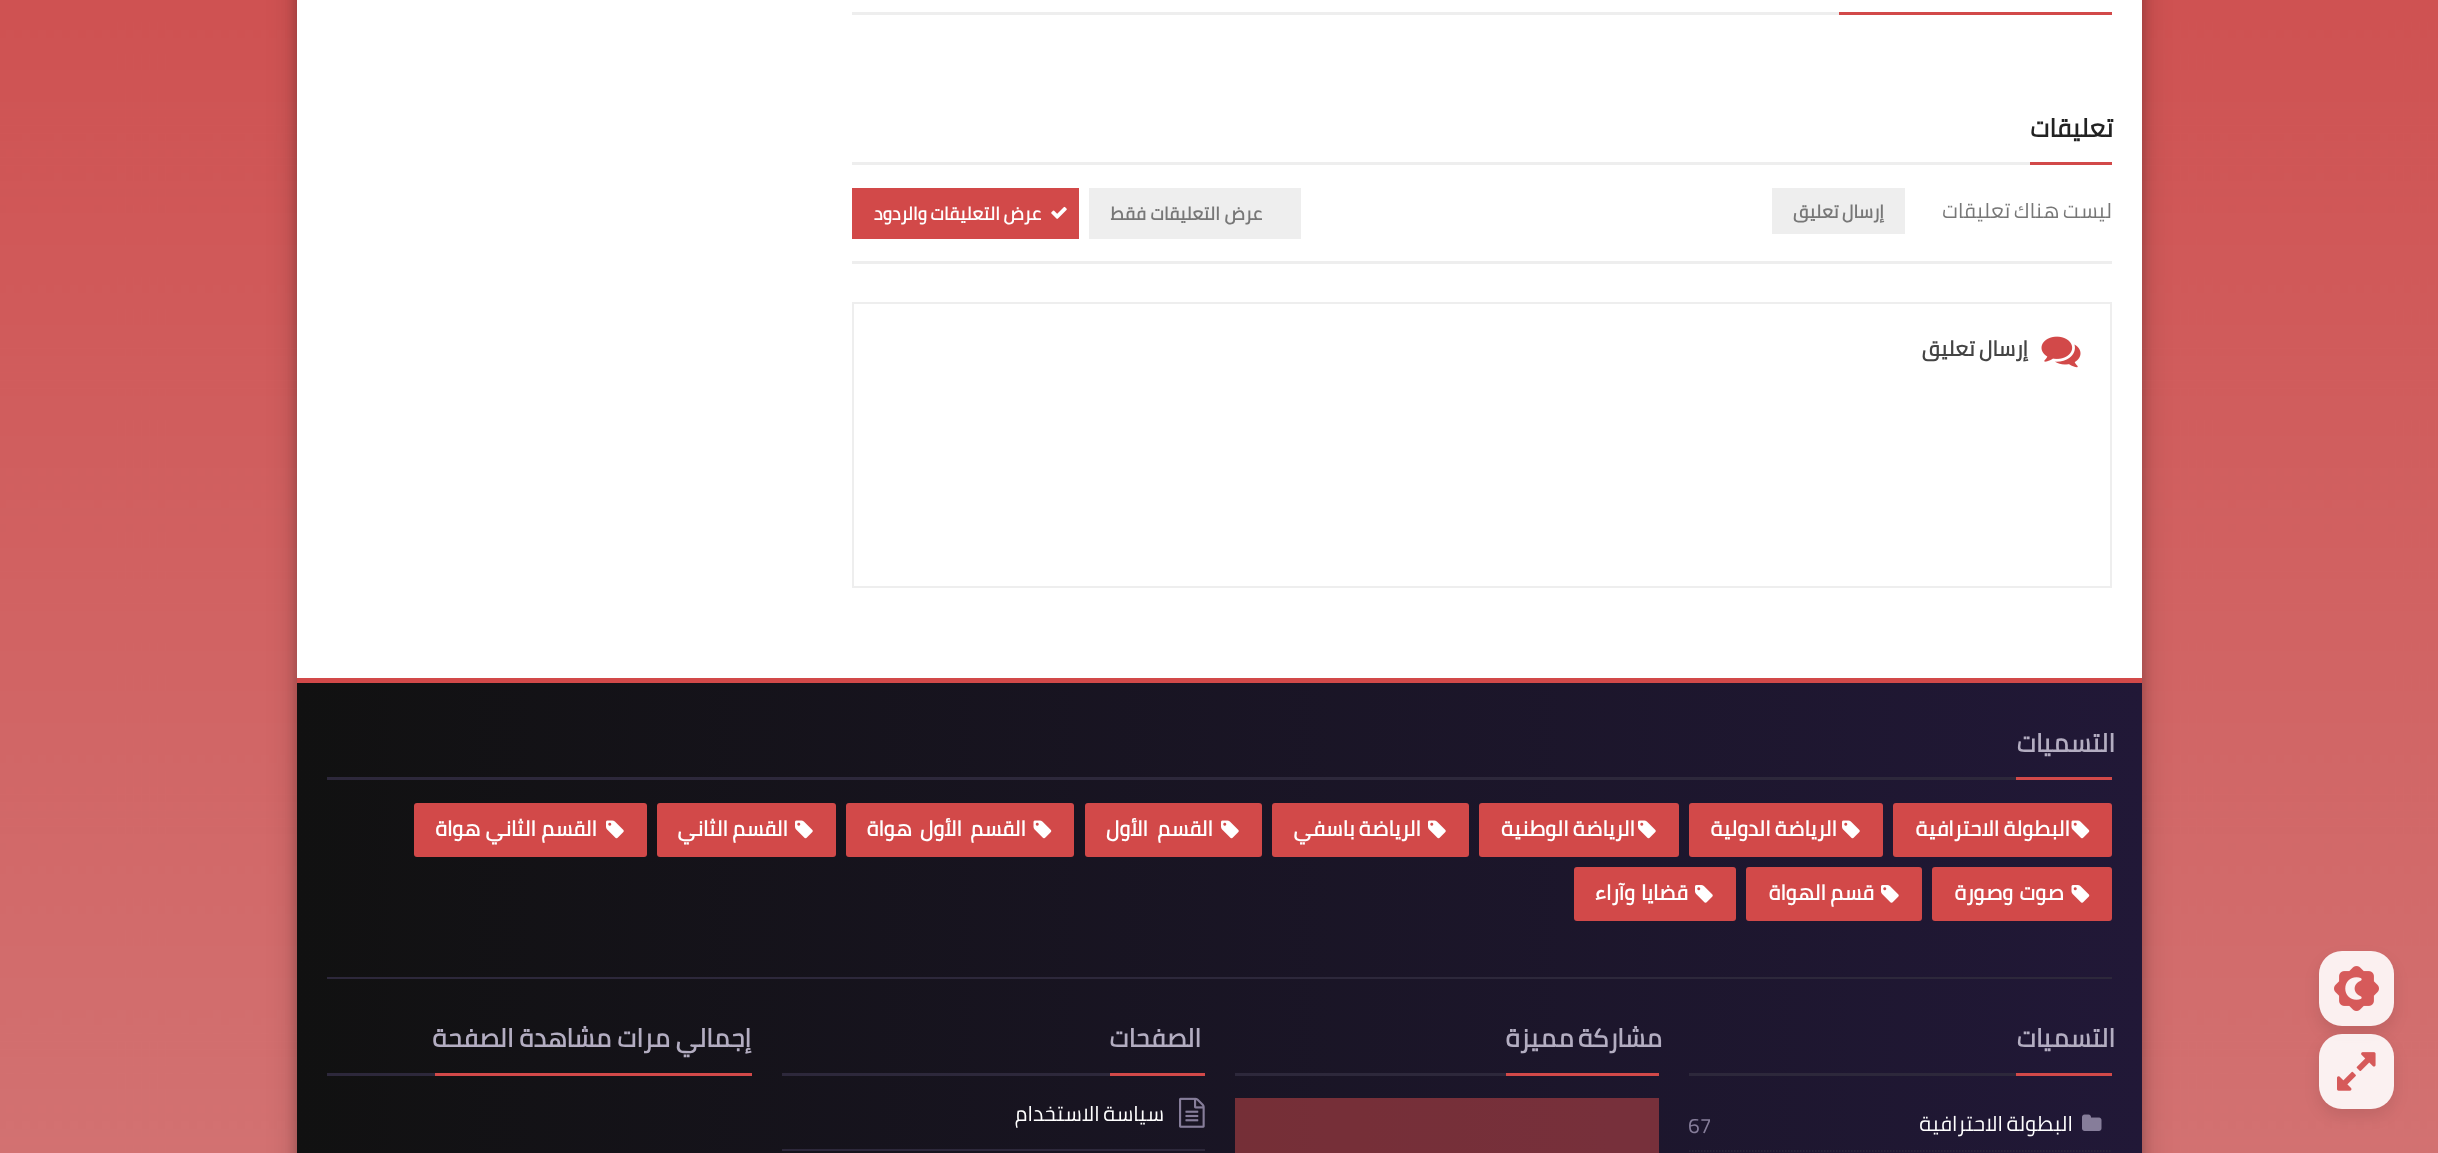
<svg xmlns="http://www.w3.org/2000/svg" width="2438" height="1153">
<style>
.a{font:bold 25.5px Cairo;direction:rtl;fill:#222}
.b{font:21px Cairo;direction:rtl;fill:#777}
.c{font:bold 18px Cairo;direction:rtl;fill:#777}
.d{font:bold 18px Cairo;direction:rtl;fill:#fff}
.e{font:bold 21px Cairo;direction:rtl;fill:#444}
.f{font:bold 25.5px Cairo;direction:rtl;fill:#b3adc1}
.g{font:bold 21px Cairo;direction:rtl;fill:#fff}
.h{font:21px Cairo;direction:rtl;fill:#fff}
.i{font:21px Cairo;fill:#867d9a}
</style>
<defs>
<clipPath id="clip1"><path d="M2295 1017h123v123h-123zm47 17h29c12.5 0 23 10.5 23 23v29c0 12.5-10.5 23-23 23h-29c-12.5 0-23-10.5-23-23v-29c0-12.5 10.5-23 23-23z" clip-rule="evenodd"/></clipPath>
<linearGradient id="g1" gradientUnits="userSpaceOnUse" x1="2142" y1="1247" x2="297" y2="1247"><stop offset="0" stop-color="#211837"/><stop offset="1" stop-color="#111"/></linearGradient>
<clipPath id="clip2"><path d="M852 188h1260v51H852z"/></clipPath>
</defs>
<rect width="100%" height="100%" fill="#fff"/>
<image href="1.png" x="0" y="0" width="2438" height="1153"/>
<rect fill="#00000017" filter="blur(7.5px)" x="2319" y="959" width="75" height="75" rx="23"/>
<rect fill="#fbf0f0" x="2319" y="951" width="75" height="75" rx="23"/>
<image href="2.png" x="2334" y="966" width="45" height="45"/>
<g clip-path="url(#clip1)">
<rect fill="#00000017" filter="blur(7.5px)" x="2319" y="1041" width="75" height="75" rx="23"/>
</g>
<rect fill="#ffffffe6" x="2319" y="1034" width="75" height="75" rx="23"/>
<image href="3.png" x="2337" y="1052" width="39" height="39"/>
<path fill="#00000030" filter="blur(15px)" d="M297 -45h1845v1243H297z"/>
<path fill="#00000033" filter="blur(6px)" d="M297 -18h1845v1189H297z"/>
<path fill="#fff" d="M297 0h1845v678H297z"/>
<path fill="#eee" d="M852 12h987v3H852z"/>
<path fill="#d24949" d="M1839 12h273v3H1839z"/>
<path fill="#eee" d="M852 162h1178v3H852z"/>
<path fill="#d24949" d="M2030 162h82v3H2030z"/>
<path fill="#eee" d="M1772 188h133v46H1772z"/>
<path fill="#eee" d="M1089 188h212v51H1089z"/>
<path fill="#d24949" d="M852 188h227v51H852z"/>
<image href="4.png" x="1051" y="206" width="16" height="13"/>
<path fill="#eee" d="M852 261h1260v3H852z"/>
<path fill="none" stroke="#eee" stroke-width="2" d="M853 303h1258v284H853z"/>
<image href="5.png" x="2041" y="336" width="40" height="32"/>
<path fill="url(#g1)" d="M297 683h1845v470H297z"/>
<path fill="#d24949" d="M297 678h1845v5H297z"/>
<path fill="#2d283b" d="M327 977h1785v2H327z"/>
<path fill="#2d283b" d="M327 777h1689v3H327z"/>
<path fill="#d24949" d="M2016 777h96v3H2016z"/>
<rect fill="#d24949" x="1893" y="803" width="219" height="54" rx="3"/>
<image href="6.png" x="2071" y="820" width="19" height="19"/>
<rect fill="#d24949" x="1689" y="803" width="194" height="54" rx="3"/>
<image href="7.png" x="1842" y="820" width="18" height="19"/>
<rect fill="#d24949" x="1479" y="803" width="200" height="54" rx="3"/>
<image href="7.png" x="1638" y="820" width="18" height="19"/>
<rect fill="#d24949" x="1272" y="803" width="197" height="54" rx="3"/>
<image href="7.png" x="1428" y="820" width="18" height="19"/>
<rect fill="#d24949" x="1085" y="803" width="177" height="54" rx="3"/>
<image href="7.png" x="1221" y="820" width="18" height="19"/>
<rect fill="#d24949" x="846" y="803" width="228" height="54" rx="3"/>
<image href="6.png" x="1033" y="820" width="19" height="19"/>
<rect fill="#d24949" x="657" y="803" width="179" height="54" rx="3"/>
<image href="7.png" x="795" y="820" width="18" height="19"/>
<rect fill="#d24949" x="414" y="803" width="233" height="54" rx="3"/>
<image href="7.png" x="606" y="820" width="18" height="19"/>
<rect fill="#d24949" x="1932" y="867" width="180" height="54" rx="3"/>
<image href="8.png" x="2071" y="885" width="19" height="18"/>
<rect fill="#d24949" x="1746" y="867" width="176" height="54" rx="3"/>
<image href="9.png" x="1881" y="885" width="18" height="18"/>
<rect fill="#d24949" x="1574" y="867" width="162" height="54" rx="3"/>
<image href="9.png" x="1695" y="885" width="18" height="18"/>
<path fill="#2d283b" d="M1689 1073h327v3H1689z"/>
<path fill="#d24949" d="M2016 1073h96v3H2016z"/>
<path fill="none" stroke="#2d283b" stroke-width="1.5" stroke-dasharray="1.5 1.5" d="M1689 1151h423"/>
<image href="10.png" x="2082" y="1114" width="20" height="17"/>
<path fill="#2d283b" d="M1235 1073h271v3H1235z"/>
<path fill="#d24949" d="M1506 1073h153v3H1506z"/>
<path fill="#d2494980" d="M1235 1098h424v55H1235z"/>
<path fill="#2d283b" d="M782 1073h328v3H782z"/>
<path fill="#d24949" d="M1110 1073h95v3H1110z"/>
<path fill="#2d283b" d="M782 1149h423v2H782z"/>
<image href="11.png" x="1179" y="1097" width="26" height="31"/>
<path fill="#2d283b" d="M327 1073h108v3H327z"/>
<path fill="#d24949" d="M435 1073h317v3H435z"/>
<text class="a" x="2113" y="137">تعليقات</text>
<g clip-path="url(#clip2)">
<text class="b" x="2112" y="218" word-spacing="-1">ليست هناك تعليقات</text>
</g>
<text class="c" x="1884" y="218" word-spacing="-1">إرسال تعليق</text>
<text class="c" x="1262" y="220">عرض التعليقات فقط</text>
<text class="d" x="1041" y="220" word-spacing="-1">عرض التعليقات والردود</text>
<text class="e" x="2028" y="356" word-spacing="-1">إرسال تعليق</text>
<text class="f" x="2115" y="752">التسميات</text>
<text class="g" x="2070" y="836" word-spacing="-1">البطولة الاحترافية</text>
<text class="g" x="1837" y="836" word-spacing="-1">الرياضة الدولية</text>
<text class="g" x="1635" y="836" word-spacing="-1">الرياضة الوطنية</text>
<text class="g" x="1421" y="836" word-spacing="-1">الرياضة باسفي</text>
<text class="g" x="1213" y="836" word-spacing="4">القسم الأول</text>
<text class="g" x="1026" y="836" word-spacing="3">القسم الأول هواة</text>
<text class="g" x="788" y="836" word-spacing="-1">القسم الثاني</text>
<text class="g" x="597" y="836">القسم الثاني هواة</text>
<text class="g" x="2064" y="900" word-spacing="1">صوت وصورة</text>
<text class="g" x="1874" y="900" word-spacing="-1">قسم الهواة</text>
<text class="g" x="1688" y="900" word-spacing="1">قضايا وآراء</text>
<text class="f" x="2115" y="1047">التسميات</text>
<text class="h" x="2073" y="1131" word-spacing="-1">البطولة الاحترافية</text>
<text class="i" x="1688" y="1133">67</text>
<text class="f" x="1662" y="1047" word-spacing="-2">مشاركة مميزة</text>
<text class="f" x="1201" y="1047">الصفحات</text>
<text class="h" x="1164" y="1121" word-spacing="-1">سياسة الاستخدام</text>
<text class="f" x="751" y="1047" word-spacing="-0.5">إجمالي مرات مشاهدة الصفحة</text>
</svg>
